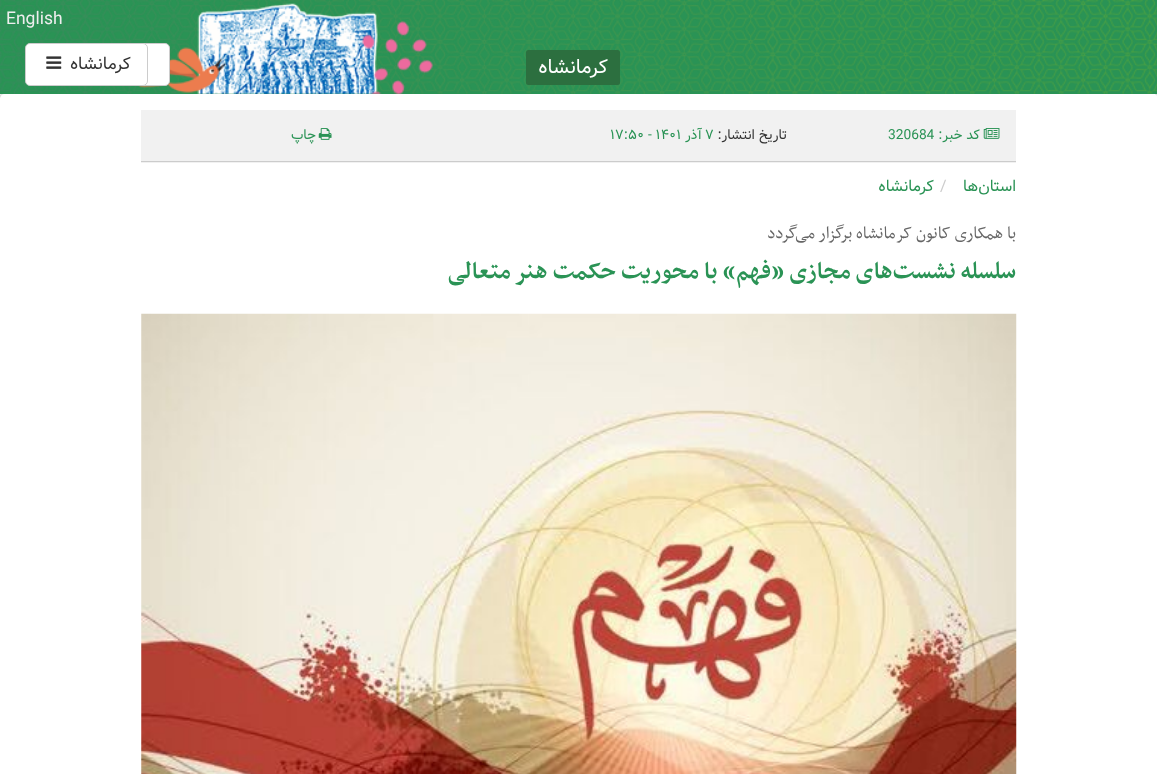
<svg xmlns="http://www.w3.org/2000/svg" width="1157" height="774">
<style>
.a{font:17.5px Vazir;fill:#eee}
.b{font:20px Vazir;direction:rtl;fill:#fff}
.c{font:17.5px Vazir;direction:rtl;fill:#333}
.d{font:13.75px Vazir;direction:rtl;fill:#2a9355}
.e{font:13.75px Vazir;fill:#2a9355}
.f{font:13.75px Vazir;direction:rtl;fill:#333}
.g{font:16px Vazir;direction:rtl;fill:#2a9355}
.h{font:16px Vazir;fill:#ccc}
.i{font:20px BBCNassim;direction:rtl;fill:#666}
.j{font:bold 27.5px BBCNassim;direction:rtl;fill:#2a9355}
</style>
<rect width="100%" height="100%" fill="#f7f7f7"/>
<rect fill="#666" filter="blur(1px)" y="95" width="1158" height="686" rx="4"/>
<path fill="#2a9355" d="M0 0h1157v94H0z"/>
<image href="1.png" x="0" y="0" width="1157" height="94"/>
<image href="2.png" x="138" y="3" width="296" height="91"/>
<rect fill="#2c6f3f" x="526" y="50" width="94" height="35" rx="2.5"/>
<rect fill="#fff" stroke="#ccc" x="113.5" y="43.5" width="56" height="42" rx="4.5"/>
<rect fill="#fff" stroke="#ccc" x="25.5" y="43.5" width="122" height="42" rx="4.5"/>
<image href="3.png" x="46" y="56" width="16" height="13"/>
<path fill="#fff" d="M4 94h1150c2 0 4 2 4 4v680h-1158v-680c0-2 2-4 4-4z"/>
<path fill="#f1f1f1" d="M141 110h875v53H141z"/>
<path fill="#ccc" d="M141 161h875v1H141z"/>
<image href="4.png" x="983" y="128" width="17" height="11"/>
<image href="5.png" x="318" y="128" width="14" height="12"/>
<image href="6.png" x="141" y="313" width="876" height="461"/>
<text class="a" x="6" y="24">English</text>
<text class="b" x="608" y="73">کرمانشاه</text>
<text class="c" x="131" y="69">کرمانشاه</text>
<text class="d" x="980" y="139">کد خبر:</text>
<text class="e" x="888" y="139">320684</text>
<text class="f" x="787" y="139">تاریخ انتشار:</text>
<text class="e" x="705" y="139">۷</text>
<text class="d" x="702" y="139">آذر</text>
<text class="e" x="610" y="139">۱۷:۵۰ - ۱۴۰۱</text>
<text class="d" x="316" y="139">چاپ</text>
<text class="g" x="1016" y="191">استان‌ها</text>
<text class="h" x="940" y="191">/</text>
<text class="g" x="934" y="191">کرمانشاه</text>
<text class="i" x="1016" y="238">با همکاری کانون کرمانشاه برگزار می‌گردد</text>
<text class="j" x="1016" y="278">سلسله نشست‌های مجازی «فهم» با محوریت حکمت هنر متعالی</text>
</svg>
